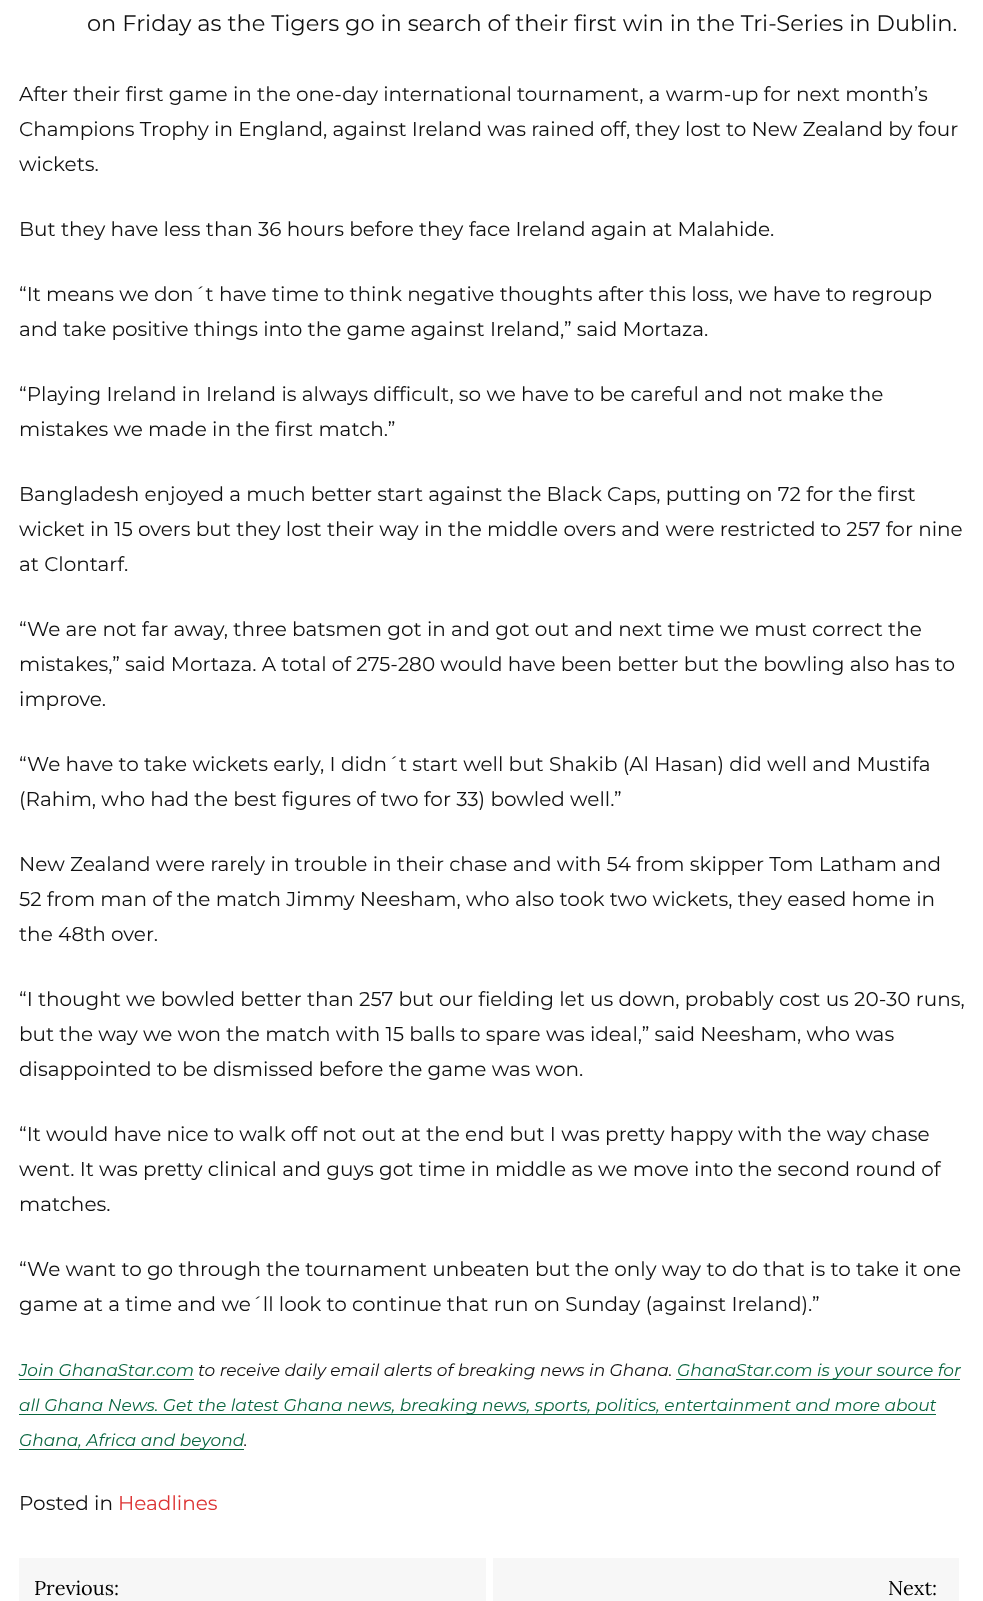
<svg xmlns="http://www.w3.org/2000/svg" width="983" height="1601">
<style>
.a{font:22.5px Montserrat;fill:#111}
.b{font:20px Montserrat;fill:#111}
.c{font:italic 17px Montserrat;fill:#0a6640}
.d{font:italic 17px Montserrat;fill:#111}
.e{font:20px Montserrat;fill:#d33}
.f{font:20px Lora;fill:#000}
</style>
<rect width="100%" height="100%" fill="#fff"/>
<path fill="#0a6640" d="M19 1379h175v1H19z"/>
<path fill="#0a6640" d="M676 1379h284v1H676z"/>
<path fill="#0a6640" d="M19 1414h917v1H19z"/>
<path fill="#0a6640" d="M19 1449h225v1H19z"/>
<path fill="#f7f7f7" d="M19 1558h467v43H19z"/>
<path fill="#f7f7f7" d="M493 1558h466v43H493z"/>
<text class="a" x="87" y="31">on Friday as the Tigers go in search of their first win in the Tri-Series in Dublin.</text>
<text class="b" x="19" y="101">After their first game in the one-day international tournament, a warm-up for next month’s</text>
<text class="b" x="19" y="136">Champions Trophy in England, against Ireland was rained off, they lost to New Zealand by four</text>
<text class="b" x="19" y="171">wickets.</text>
<text class="b" x="19" y="236">But they have less than 36 hours before they face Ireland again at Malahide.</text>
<text class="b" x="19" y="301">“It means we don´t have time to think negative thoughts after this loss, we have to regroup</text>
<text class="b" x="19" y="336">and take positive things into the game against Ireland,” said Mortaza.</text>
<text class="b" x="19" y="401">“Playing Ireland in Ireland is always difficult, so we have to be careful and not make the</text>
<text class="b" x="19" y="436">mistakes we made in the first match.”</text>
<text class="b" x="19" y="501">Bangladesh enjoyed a much better start against the Black Caps, putting on 72 for the first</text>
<text class="b" x="19" y="536">wicket in 15 overs but they lost their way in the middle overs and were restricted to 257 for nine</text>
<text class="b" x="19" y="571">at Clontarf.</text>
<text class="b" x="19" y="636">“We are not far away, three batsmen got in and got out and next time we must correct the</text>
<text class="b" x="19" y="671">mistakes,” said Mortaza. A total of 275-280 would have been better but the bowling also has to</text>
<text class="b" x="19" y="706">improve.</text>
<text class="b" x="19" y="771">“We have to take wickets early, I didn´t start well but Shakib (Al Hasan) did well and Mustifa</text>
<text class="b" x="19" y="806">(Rahim, who had the best figures of two for 33) bowled well.”</text>
<text class="b" x="19" y="871">New Zealand were rarely in trouble in their chase and with 54 from skipper Tom Latham and</text>
<text class="b" x="19" y="906">52 from man of the match Jimmy Neesham, who also took two wickets, they eased home in</text>
<text class="b" x="19" y="941">the 48th over.</text>
<text class="b" x="19" y="1006">“I thought we bowled better than 257 but our fielding let us down, probably cost us 20-30 runs,</text>
<text class="b" x="19" y="1041">but the way we won the match with 15 balls to spare was ideal,” said Neesham, who was</text>
<text class="b" x="19" y="1076">disappointed to be dismissed before the game was won.</text>
<text class="b" x="19" y="1141">“It would have nice to walk off not out at the end but I was pretty happy with the way chase</text>
<text class="b" x="19" y="1176">went. It was pretty clinical and guys got time in middle as we move into the second round of</text>
<text class="b" x="19" y="1211">matches.</text>
<text class="b" x="19" y="1276">“We want to go through the tournament unbeaten but the only way to do that is to take it one</text>
<text class="b" x="19" y="1311">game at a time and we´ll look to continue that run on Sunday (against Ireland).”</text>
<text class="c" x="19" y="1376">Join GhanaStar.com</text>
<text class="d" x="198" y="1376">to receive daily email alerts of breaking news in Ghana.</text>
<text class="c" x="677" y="1376">GhanaStar.com is your source for</text>
<text class="c" x="19" y="1411">all Ghana News. Get the latest Ghana news, breaking news, sports, politics, entertainment and more about</text>
<text class="c" x="19" y="1446">Ghana, Africa and beyond</text>
<text class="d" x="244" y="1446">.</text>
<text class="b" x="19" y="1510">Posted in</text>
<text class="e" x="118" y="1510">Headlines</text>
<text class="f" x="34" y="1595">Previous:</text>
<text class="f" x="888" y="1595">Next:</text>
</svg>
